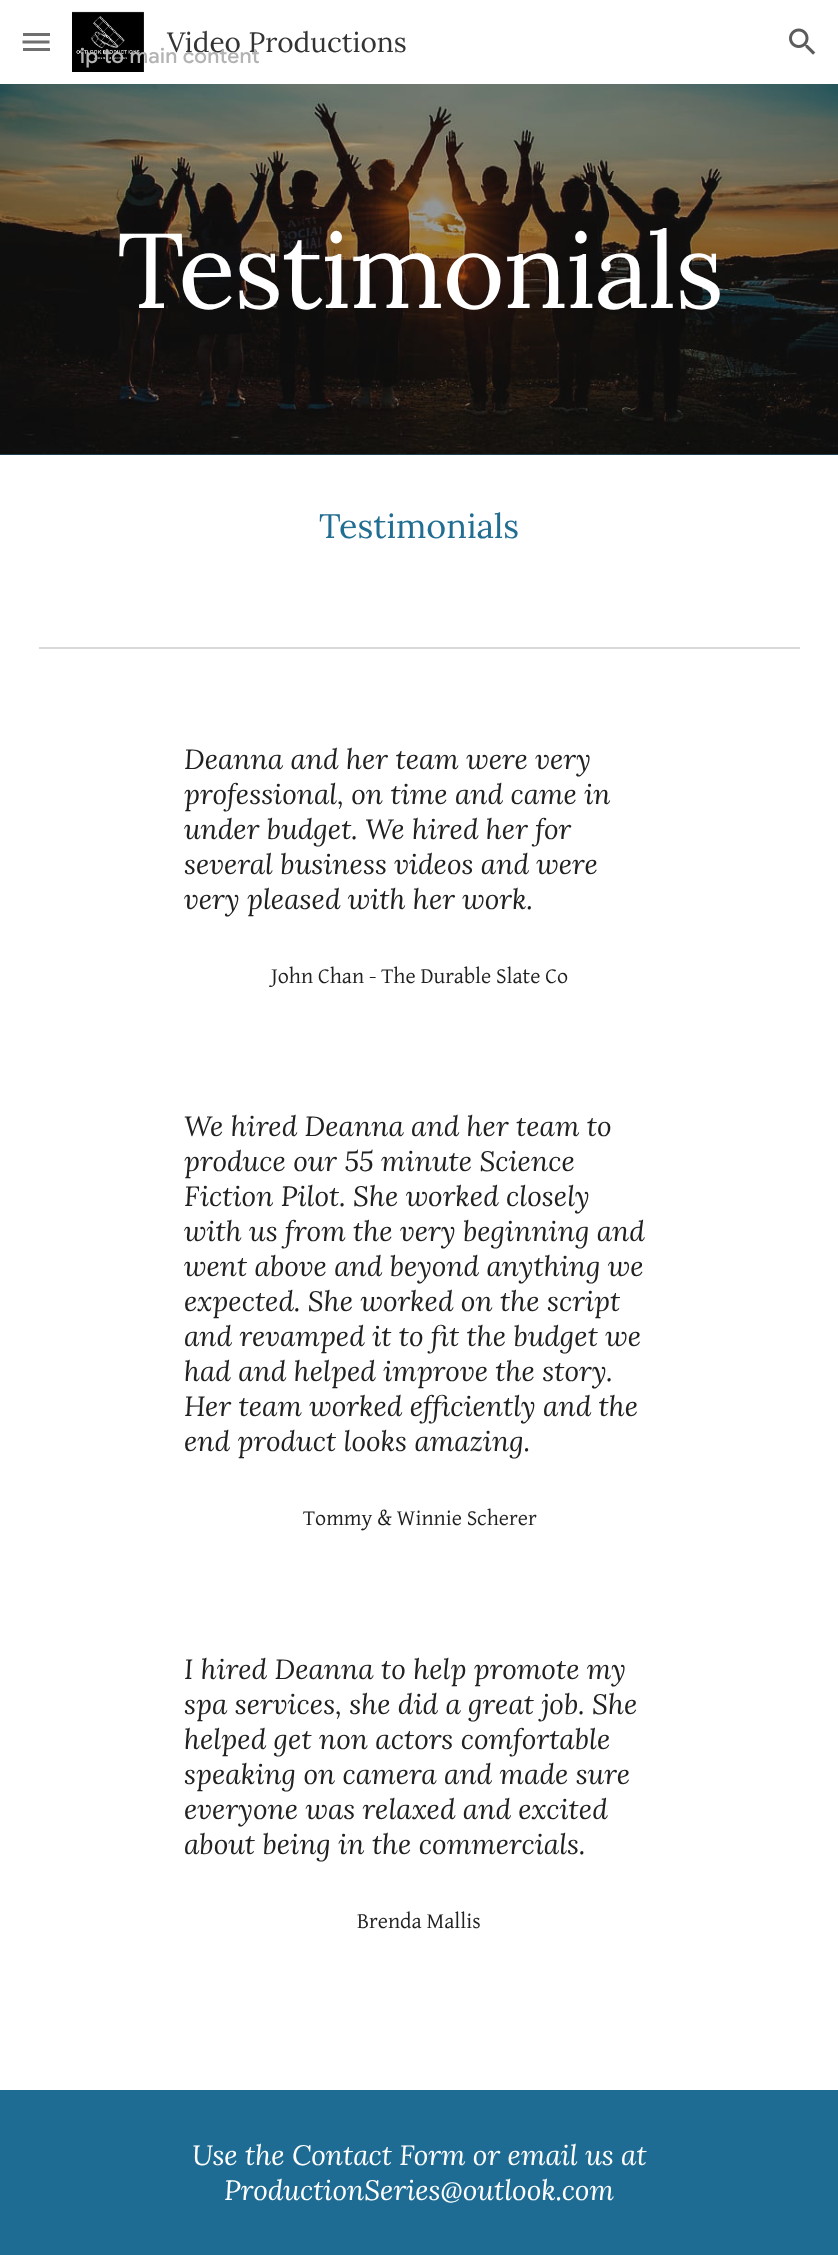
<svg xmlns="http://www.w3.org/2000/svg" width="838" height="2255">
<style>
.a{font:28px Lora;fill:#333}
.b{font:106px Lora;letter-spacing:-1.5px;fill:#fff}
.c{font:34px Lora;fill:#226e93}
.d{font:italic 28px Lora;fill:#212121}
.e{font:22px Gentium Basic;fill:#212121}
.f{font:italic 28px Lora;fill:#fff}
.g{font:500 21px Google Sans;letter-spacing:0.25px;fill:#b3b3b3}
</style>
<rect width="100%" height="100%" fill="#fff"/>
<path fill="#5c5c5c" d="M23 33h27v3H23z"/>
<path fill="none" stroke="#5c5c5c" stroke-width="3" d="M22.5 42h27"/>
<path fill="#5c5c5c" d="M23 48h27v3H23z"/>
<path fill="#ffffff1f" d="M22 33h28v18H22z"/>
<image href="1.png" x="72" y="11" width="72" height="61"/>
<image href="2.png" x="789" y="28" width="27" height="27"/>
<path fill="#224f65" d="M0 454h838v1H0z"/>
<image href="3.png" x="0" y="84" width="838" height="371"/>
<path fill="#d9d9d9" d="M39 647h761v2H39z"/>
<path fill="#1e6c93" d="M0 2090h838v165H0z"/>
<text class="a" x="167" y="52">Video Productions</text>
<text class="b" x="117" y="308">Testimonials</text>
<text class="c" x="319" y="538">Testimonials</text>
<text class="d" x="184" y="769">Deanna and her team were very</text>
<text class="d" x="184" y="804">professional, on time and came in</text>
<text class="d" x="184" y="839">under budget. We hired her for</text>
<text class="d" x="184" y="874">several business videos and were</text>
<text class="d" x="184" y="909">very pleased with her work.</text>
<text class="e" x="271" y="983">John Chan - The Durable Slate Co</text>
<text class="d" x="184" y="1136">We hired Deanna and her team to</text>
<text class="d" x="184" y="1171">produce our 55 minute Science</text>
<text class="d" x="184" y="1206">Fiction Pilot. She worked closely</text>
<text class="d" x="184" y="1241">with us from the very beginning and</text>
<text class="d" x="184" y="1276">went above and beyond anything we</text>
<text class="d" x="184" y="1311">expected. She worked on the script</text>
<text class="d" x="184" y="1346">and revamped it to fit the budget we</text>
<text class="d" x="184" y="1381">had and helped improve the story.</text>
<text class="d" x="184" y="1416">Her team worked efficiently and the</text>
<text class="d" x="184" y="1451">end product looks amazing.</text>
<text class="e" x="303" y="1525">Tommy &amp; Winnie Scherer</text>
<text class="d" x="184" y="1679">I hired Deanna to help promote my</text>
<text class="d" x="184" y="1714">spa services, she did a great job. She</text>
<text class="d" x="184" y="1749">helped get non actors comfortable</text>
<text class="d" x="184" y="1784">speaking on camera and made sure</text>
<text class="d" x="184" y="1819">everyone was relaxed and excited</text>
<text class="d" x="184" y="1854">about being in the commercials.</text>
<text class="e" x="357" y="1928">Brenda Mallis</text>
<text class="f" x="192" y="2165">Use the Contact Form or email us at</text>
<text class="f" x="224" y="2200">ProductionSeries@outlook.com</text>
<text class="g" x="80" y="63">ip to main content</text>
</svg>
